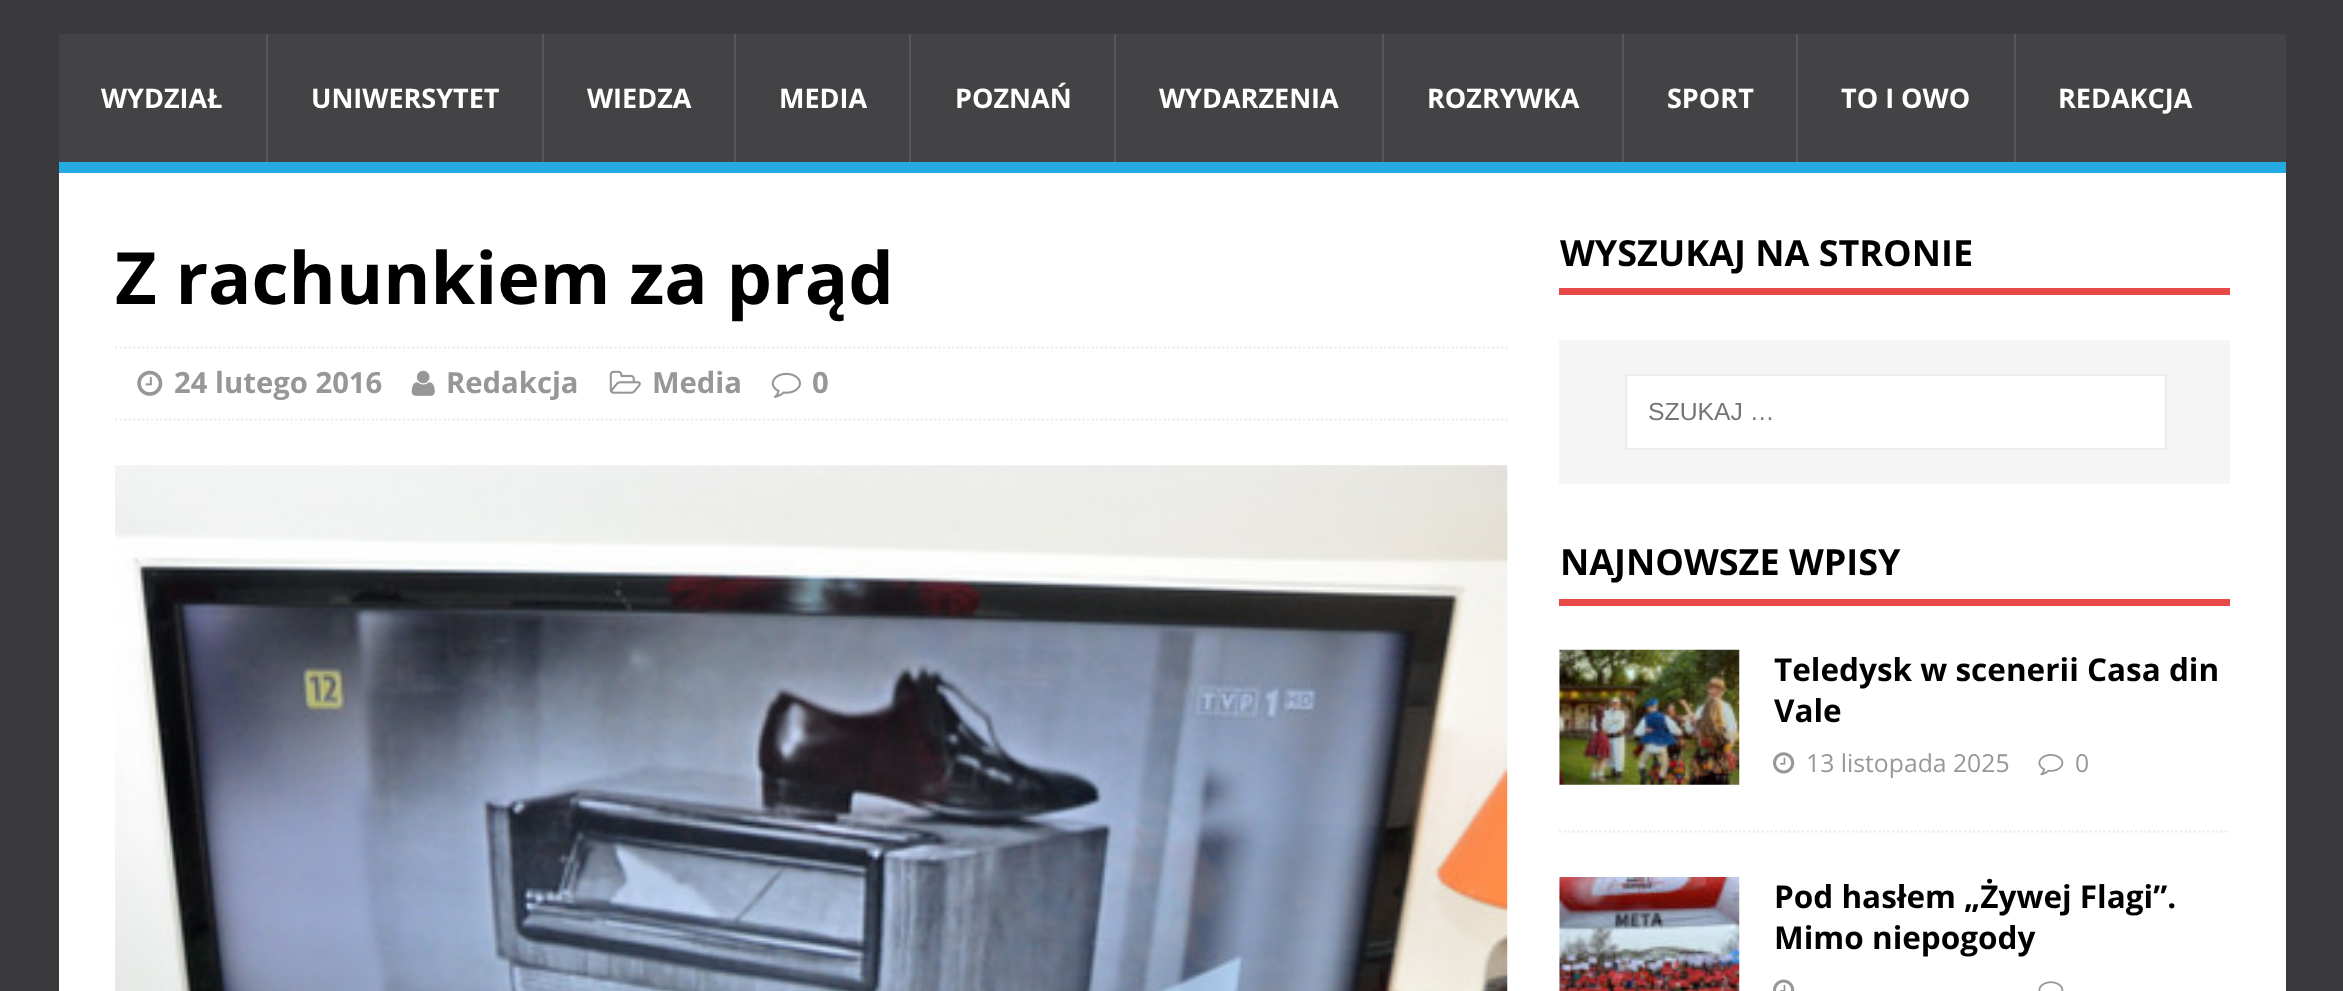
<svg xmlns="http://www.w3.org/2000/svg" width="2343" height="991">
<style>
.a{font:bold 27px Open Sans;fill:#fff}
.b{font:bold 72px Open Sans;fill:#000}
.c{font:bold 29.25px Open Sans;fill:#979797}
.d{font:bold 36px Open Sans;fill:#000}
.e{font:24.75px Liberation Sans;fill:#757575}
.f{font:bold 31.5px Open Sans;fill:#000}
.g{font:24.75px Open Sans;fill:#979797}
</style>
<rect width="100%" height="100%" fill="#3a3a3c"/>
<path fill="#434345" d="M59 34h2227v128H59z"/>
<path fill="#25aae2" d="M59 162h2227v11H59z"/>
<path fill="#565658" d="M266 34h2v128H266z"/>
<path fill="#565658" d="M542 34h2v128H542z"/>
<path fill="#565658" d="M734 34h2v128H734z"/>
<path fill="#565658" d="M909 34h2v128H909z"/>
<path fill="#565658" d="M1114 34h2v128H1114z"/>
<path fill="#565658" d="M1382 34h2v128H1382z"/>
<path fill="#565658" d="M1622 34h2v128H1622z"/>
<path fill="#565658" d="M1796 34h2v128H1796z"/>
<path fill="#565658" d="M2014 34h2v128H2014z"/>
<path fill="#fff" d="M59 173h2227v818H59z"/>
<path fill="none" stroke="#ebebeb" stroke-width="2.2" stroke-dasharray="2.25 2.25" d="M115 347.5h1392.5"/>
<path fill="none" stroke="#ebebeb" stroke-width="2.2" stroke-dasharray="2.25 2.25" d="M115 419.5h1392.5"/>
<image href="1.png" x="137" y="370" width="26" height="26"/>
<image href="2.png" x="411" y="370" width="24" height="26"/>
<image href="3.png" x="609" y="370" width="32" height="24"/>
<image href="4.png" x="771" y="372" width="30" height="26"/>
<image href="5.png" x="115" y="465" width="1393" height="526"/>
<path fill="#e64946" d="M1559 288h671v7H1559z"/>
<path fill="#f5f5f5" d="M1559 340h671v144H1559z"/>
<path fill="#fff" stroke="#ebebeb" stroke-width="2" d="M1626 375h540v74H1626z"/>
<path fill="#e64946" d="M1559 599h671v7H1559z"/>
<path fill="none" stroke="#ebebeb" stroke-width="2.2" stroke-dasharray="2.25 2.25" d="M1559 831.5h671"/>
<image href="6.png" x="1559" y="649" width="181" height="136"/>
<image href="7.png" x="1773" y="752" width="22" height="22"/>
<image href="8.png" x="2038" y="754" width="26" height="22"/>
<image href="9.png" x="1559" y="877" width="181" height="114"/>
<image href="10.png" x="1773" y="979" width="22" height="12"/>
<image href="11.png" x="2038" y="981" width="26" height="10"/>
<text class="a" x="101" y="108">WYDZIAŁ</text>
<text class="a" x="311" y="108">UNIWERSYTET</text>
<text class="a" x="587" y="108">WIEDZA</text>
<text class="a" x="779" y="108">MEDIA</text>
<text class="a" x="955" y="108">POZNAŃ</text>
<text class="a" x="1159" y="108">WYDARZENIA</text>
<text class="a" x="1427" y="108">ROZRYWKA</text>
<text class="a" x="1667" y="108">SPORT</text>
<text class="a" x="1841" y="108">TO I OWO</text>
<text class="a" x="2058" y="108">REDAKCJA</text>
<text class="b" x="115" y="304">Z rachunkiem za prąd</text>
<text class="c" x="174" y="393">24 lutego 2016</text>
<text class="c" x="446" y="393">Redakcja</text>
<text class="c" x="652" y="393">Media</text>
<text class="c" x="812" y="393">0</text>
<text class="d" x="1560" y="266">WYSZUKAJ NA STRONIE</text>
<text class="e" x="1648" y="420">SZUKAJ …</text>
<text class="d" x="1560" y="575">NAJNOWSZE WPISY</text>
<text class="f" x="1774" y="681">Teledysk w scenerii Casa din</text>
<text class="f" x="1774" y="722">Vale</text>
<text class="g" x="1806" y="772">13 listopada 2025</text>
<text class="g" x="2075" y="772">0</text>
<text class="f" x="1774" y="908">Pod hasłem „Żywej Flagi”.</text>
<text class="f" x="1774" y="949">Mimo niepogody</text>
</svg>
